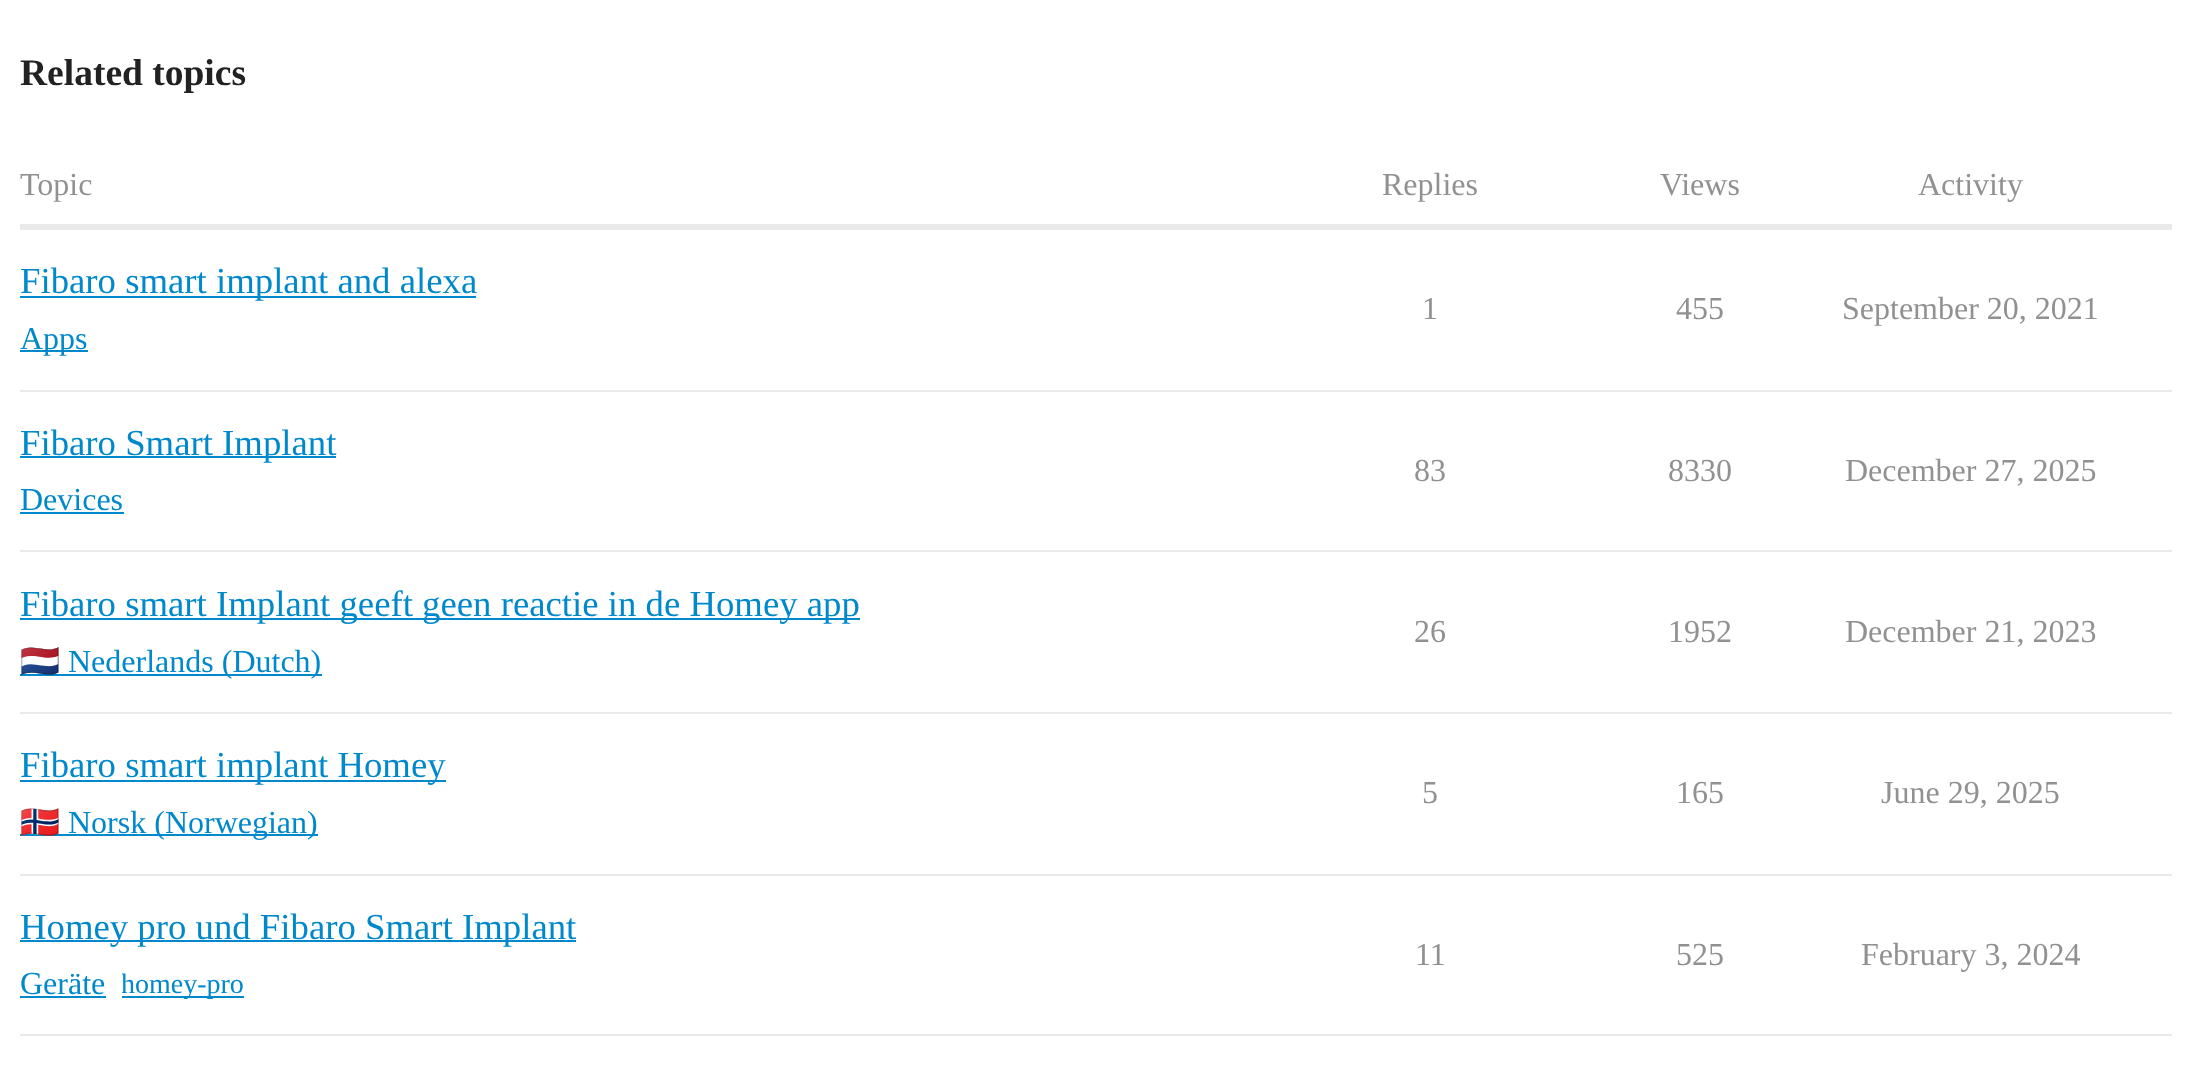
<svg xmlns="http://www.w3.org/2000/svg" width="2191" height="1080">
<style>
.a{font:bold 37.5px Liberation Serif;fill:#222}
.b{font:32px Liberation Serif;fill:#919191}
.c{font:36.75px Liberation Serif;fill:#08c}
.d{font:32px Liberation Serif;fill:#08c}
.e{font:32px Noto Color Emoji;fill:#08c}
.f{font:28px Liberation Serif;fill:#08c}
</style>
<defs>
<clipPath id="clip1"><path d="M122 966h122v38H122z"/></clipPath>
</defs>
<rect width="100%" height="100%" fill="#fff"/>
<path fill="#e9e9e9" d="M20 224h2152v6H20z"/>
<path fill="#e9e9e9" d="M20 390h2152v2H20z"/>
<path fill="#08c" d="M20 296h456v2H20z"/>
<path fill="#08c" d="M20 350h68v2H20z"/>
<path fill="#e9e9e9" d="M20 550h2152v2H20z"/>
<path fill="#08c" d="M20 456h316v2H20z"/>
<path fill="#08c" d="M20 512h104v2H20z"/>
<path fill="#e9e9e9" d="M20 712h2152v2H20z"/>
<path fill="#08c" d="M20 618h840v2H20z"/>
<path fill="#08c" d="M20 674h302v2H20z"/>
<path fill="#e9e9e9" d="M20 874h2152v2H20z"/>
<path fill="#08c" d="M20 780h426v2H20z"/>
<path fill="#08c" d="M20 834h298v2H20z"/>
<path fill="#e9e9e9" d="M20 1034h2152v2H20z"/>
<path fill="#08c" d="M20 940h556v2H20z"/>
<path fill="#08c" d="M20 996h86v2H20z"/>
<path fill="#08c" d="M122 996h122v2H122z"/>
<text class="a" x="20" y="85">Related topics</text>
<text class="b" x="20" y="195">Topic</text>
<text class="b" x="1382" y="195">Replies</text>
<text class="b" x="1660" y="195">Views</text>
<text class="b" x="1918" y="195">Activity</text>
<text class="c" x="20" y="293">Fibaro smart implant and alexa</text>
<text class="d" x="20" y="349">Apps</text>
<text class="b" x="1422" y="319">1</text>
<text class="b" x="1676" y="319">455</text>
<text class="b" x="1842" y="319">September 20, 2021</text>
<text class="c" x="20" y="455">Fibaro Smart Implant</text>
<text class="d" x="20" y="510">Devices</text>
<text class="b" x="1414" y="481">83</text>
<text class="b" x="1668" y="481">8330</text>
<text class="b" x="1845" y="481">December 27, 2025</text>
<text class="c" x="20" y="616">Fibaro smart Implant geeft geen reactie in de Homey app</text>
<text class="e" x="20" y="672">🇳🇱</text>
<text class="d" x="68" y="672">Nederlands (Dutch)</text>
<text class="b" x="1414" y="642">26</text>
<text class="b" x="1668" y="642">1952</text>
<text class="b" x="1845" y="642">December 21, 2023</text>
<text class="c" x="20" y="777">Fibaro smart implant Homey</text>
<text class="e" x="20" y="833">🇳🇴</text>
<text class="d" x="68" y="833">Norsk (Norwegian)</text>
<text class="b" x="1422" y="803">5</text>
<text class="b" x="1676" y="803">165</text>
<text class="b" x="1881" y="803">June 29, 2025</text>
<text class="c" x="20" y="939">Homey pro und Fibaro Smart Implant</text>
<text class="d" x="20" y="994">Geräte</text>
<g clip-path="url(#clip1)">
<text class="f" x="121" y="993">homey-pro</text>
</g>
<text class="b" x="1415" y="965">11</text>
<text class="b" x="1676" y="965">525</text>
<text class="b" x="1861" y="965">February 3, 2024</text>
</svg>
